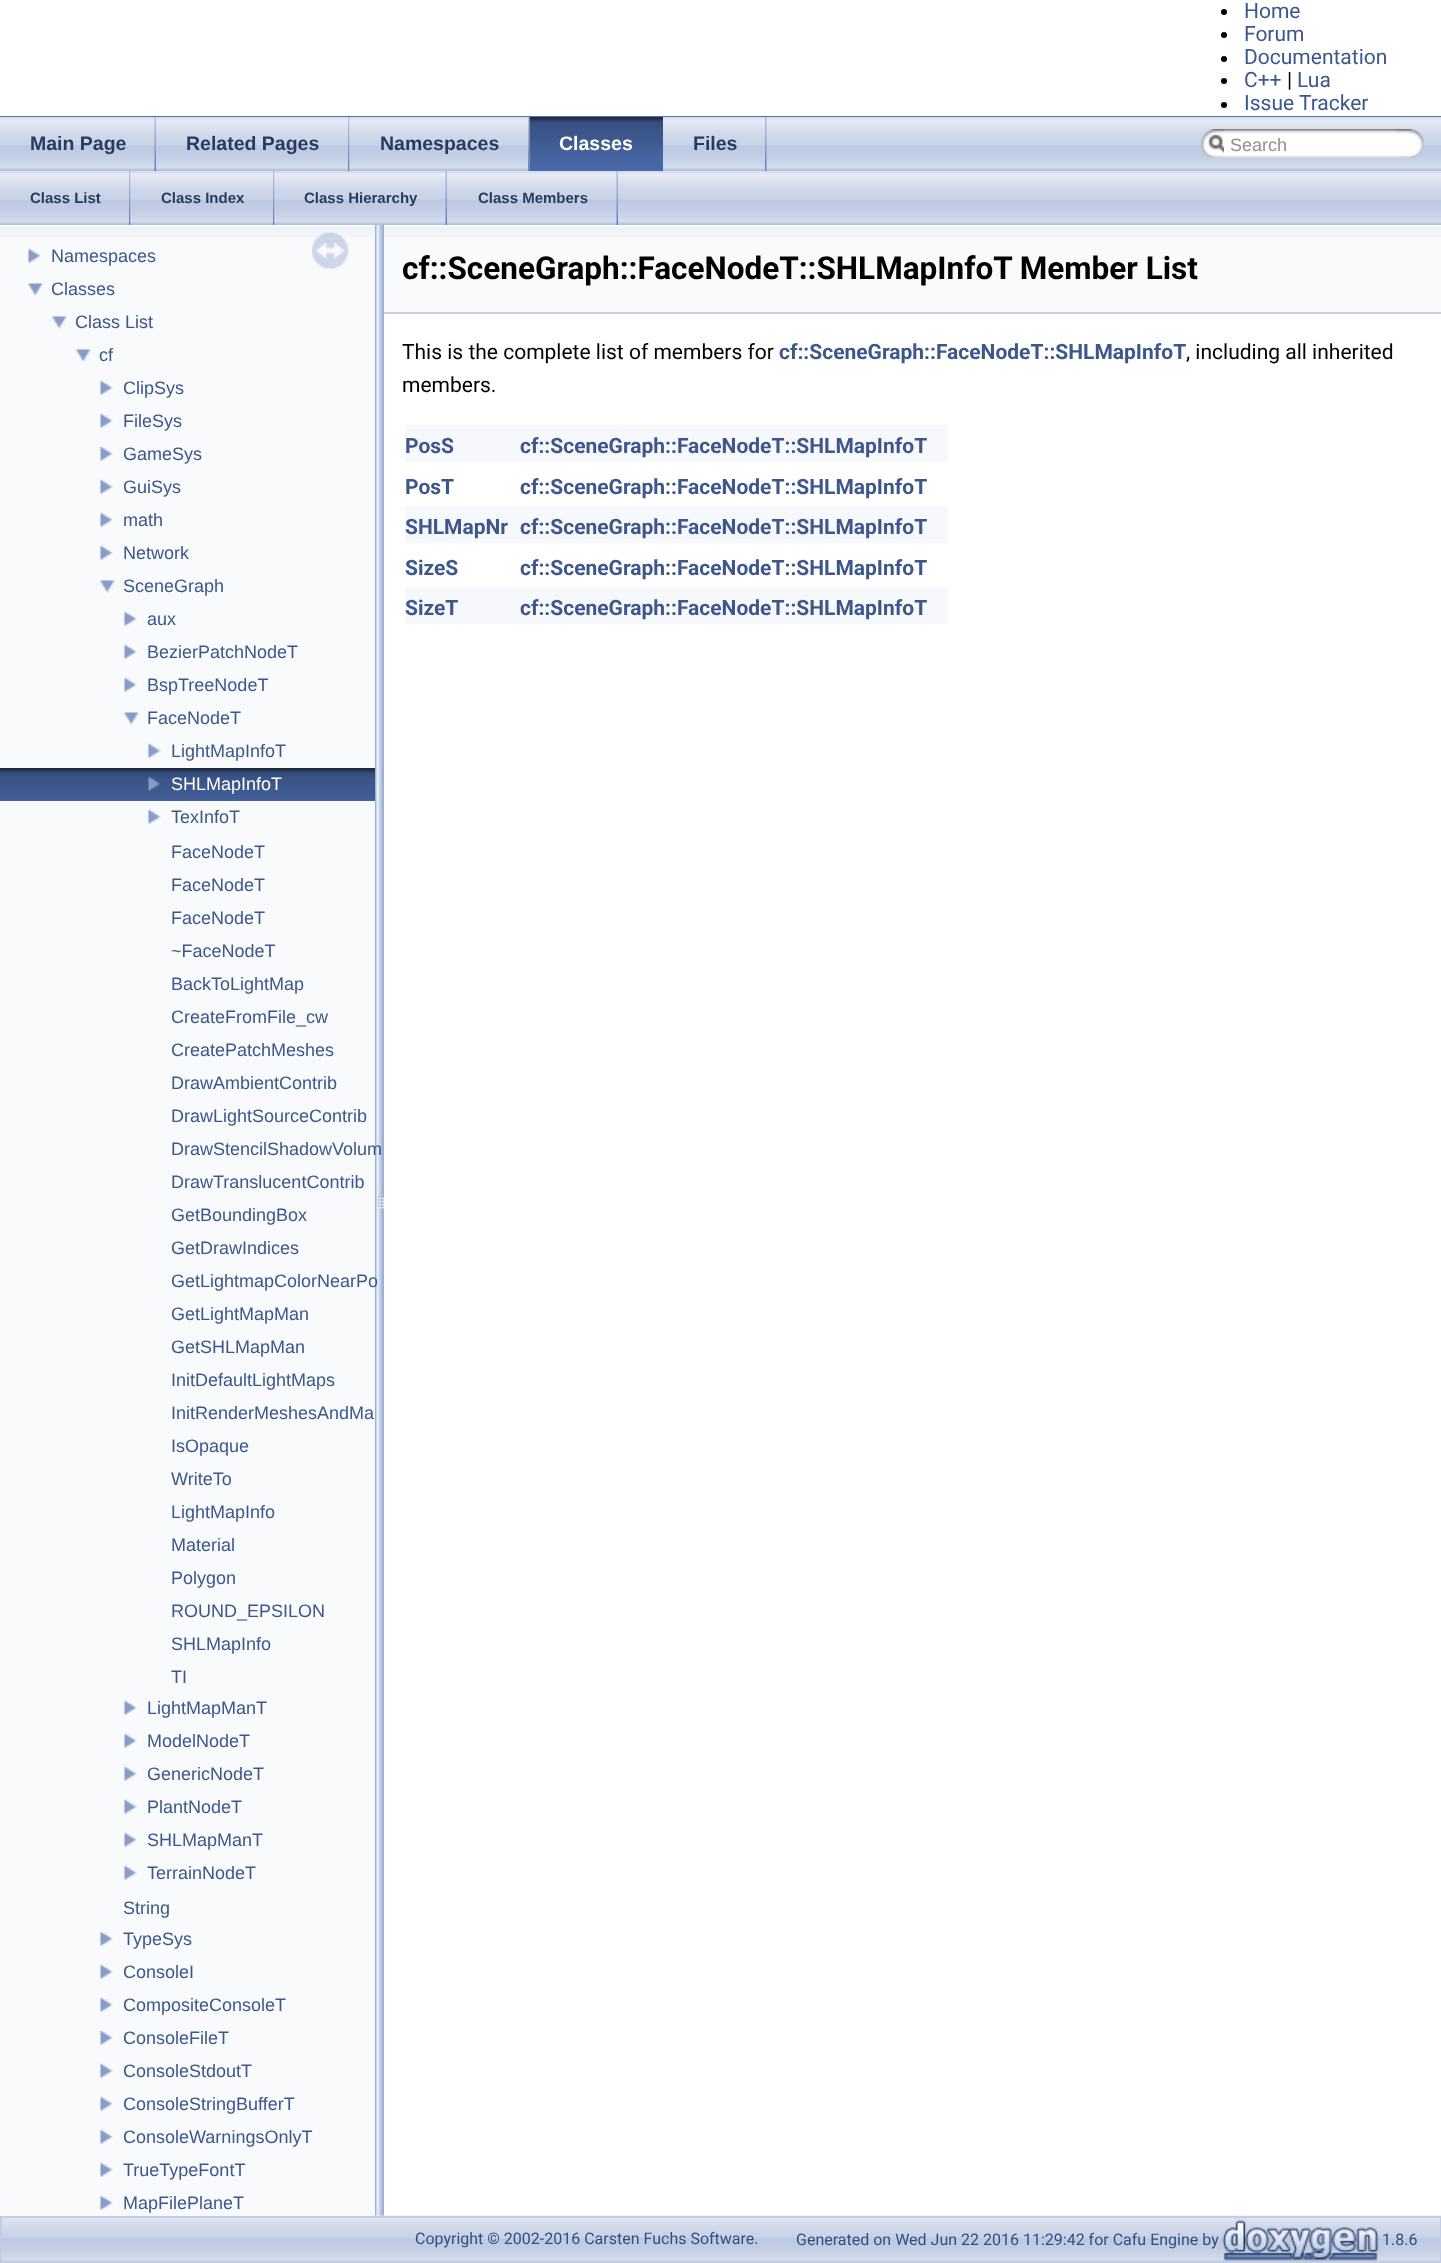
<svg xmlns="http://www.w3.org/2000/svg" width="1441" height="2263">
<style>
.a{font:21px Roboto;fill:#3d578c}
.b{font:21px Roboto;fill:#000}
.c{font:bold 19.5px Liberation Sans;fill:#283a5d}
.d{font:bold 19.5px Liberation Sans;fill:#fff}
.e{font:18px Liberation Sans;fill:#909090}
.f{font:bold 15px Liberation Sans;fill:#283a5d}
.g{font:18px Liberation Sans;fill:#3d578c}
.h{font:18px Liberation Sans;fill:#fff}
.i{font:bold 31.5px Roboto;fill:#000}
.j{font:bold 21px Roboto;fill:#3d578c}
.k{font:16px Roboto;fill:#364d7c}
</style>
<rect width="100%" height="100%" fill="#fff"/>
<path fill="#5373b4" d="M0 116h1441v1H0z"/>
<circle fill="#000" cx="1224" cy="12" r="3"/>
<circle fill="#000" cx="1224" cy="35" r="3"/>
<circle fill="#000" cx="1224" cy="59" r="3"/>
<circle fill="#000" cx="1224" cy="81" r="3"/>
<circle fill="#000" cx="1224" cy="105" r="3"/>
<image href="1.png" x="0" y="117" width="1441" height="54"/>
<image href="2.png" x="154" y="117" width="2" height="54"/>
<image href="3.png" x="348" y="117" width="2" height="54"/>
<image href="4.png" x="349" y="117" width="1" height="54"/>
<image href="3.png" x="528" y="117" width="2" height="54"/>
<image href="4.png" x="529" y="117" width="1" height="54"/>
<image href="5.png" x="529" y="117" width="134" height="54"/>
<image href="3.png" x="765" y="117" width="2" height="54"/>
<image href="6.png" x="1201" y="129" width="31" height="29"/>
<image href="7.png" x="1208" y="134" width="16" height="20"/>
<image href="8.png" x="1224" y="129" width="176" height="29"/>
<image href="9.png" x="1396" y="129" width="28" height="29"/>
<image href="1.png" x="0" y="171" width="1441" height="54"/>
<image href="3.png" x="129" y="171" width="2" height="54"/>
<image href="4.png" x="130" y="171" width="1" height="54"/>
<image href="3.png" x="273" y="171" width="2" height="54"/>
<image href="4.png" x="274" y="171" width="1" height="54"/>
<image href="2.png" x="445" y="171" width="2" height="54"/>
<image href="2.png" x="616" y="171" width="2" height="54"/>
<image href="18.png" x="2" y="2215" width="1439" height="47"/>
<path fill="#f9fafc" d="M0 237h375v1979H0z"/>
<image href="10.png" x="0" y="225" width="375" height="12"/>
<image href="11.png" x="312" y="232" width="36" height="37"/>
<image href="12.png" x="28" y="248" width="13" height="15"/>
<image href="13.png" x="28" y="283" width="15" height="13"/>
<image href="13.png" x="52" y="316" width="15" height="13"/>
<image href="13.png" x="76" y="349" width="15" height="13"/>
<image href="12.png" x="100" y="380" width="13" height="15"/>
<image href="12.png" x="100" y="413" width="13" height="15"/>
<image href="12.png" x="100" y="446" width="13" height="15"/>
<image href="12.png" x="100" y="479" width="13" height="15"/>
<image href="12.png" x="100" y="512" width="13" height="15"/>
<image href="12.png" x="100" y="545" width="13" height="15"/>
<image href="13.png" x="100" y="580" width="15" height="13"/>
<image href="12.png" x="124" y="611" width="13" height="15"/>
<image href="12.png" x="124" y="644" width="13" height="15"/>
<image href="12.png" x="124" y="677" width="13" height="15"/>
<image href="13.png" x="124" y="712" width="15" height="13"/>
<image href="12.png" x="148" y="743" width="13" height="15"/>
<image href="14.png" x="0" y="768" width="375" height="33"/>
<image href="15.png" x="148" y="776" width="13" height="15"/>
<image href="12.png" x="148" y="809" width="13" height="15"/>
<image href="12.png" x="124" y="1700" width="13" height="15"/>
<image href="12.png" x="124" y="1733" width="13" height="15"/>
<image href="12.png" x="124" y="1766" width="13" height="15"/>
<image href="12.png" x="124" y="1799" width="13" height="15"/>
<image href="12.png" x="124" y="1832" width="13" height="15"/>
<image href="12.png" x="124" y="1865" width="13" height="15"/>
<image href="12.png" x="100" y="1931" width="13" height="15"/>
<image href="12.png" x="100" y="1964" width="13" height="15"/>
<image href="12.png" x="100" y="1997" width="13" height="15"/>
<image href="12.png" x="100" y="2030" width="13" height="15"/>
<image href="12.png" x="100" y="2063" width="13" height="15"/>
<image href="12.png" x="100" y="2096" width="13" height="15"/>
<image href="12.png" x="100" y="2129" width="13" height="15"/>
<image href="12.png" x="100" y="2162" width="13" height="15"/>
<image href="12.png" x="100" y="2195" width="13" height="15"/>
<image href="16.png" x="375" y="225" width="9" height="1991"/>
<path fill="#f9fafc" d="M384 237h1057v75H384z"/>
<image href="17.png" x="384" y="225" width="1057" height="12"/>
<path fill="#c4cfe5" d="M384 312h1057v2H384z"/>
<path fill="#f7f8fb" d="M405 425h543v37H405z"/>
<path fill="#f7f8fb" d="M405 506h543v37H405z"/>
<path fill="#f7f8fb" d="M405 587h543v37H405z"/>
<path fill="none" stroke="#c2cde4" stroke-width="2" d="M1 2217h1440v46H1z"/>
<image href="19.png" x="1222" y="2219" width="157" height="42"/>
<text class="a" x="1244" y="18">Home</text>
<text class="a" x="1244" y="41">Forum</text>
<text class="a" x="1244" y="64">Documentation</text>
<text class="a" x="1244" y="87">C++</text>
<text class="b" x="1287" y="87">|</text>
<text class="a" x="1297" y="87">Lua</text>
<text class="a" x="1244" y="110">Issue Tracker</text>
<text class="c" x="30" y="150">Main Page</text>
<text class="c" x="186" y="150">Related Pages</text>
<text class="c" x="380" y="150">Namespaces</text>
<text class="d" x="559" y="150">Classes</text>
<text class="c" x="693" y="150">Files</text>
<text class="e" x="1230" y="151">Search</text>
<text class="f" x="30" y="203">Class List</text>
<text class="f" x="161" y="203">Class Index</text>
<text class="f" x="304" y="203">Class Hierarchy</text>
<text class="f" x="478" y="203">Class Members</text>
<text class="g" x="51" y="262">Namespaces</text>
<text class="g" x="51" y="295">Classes</text>
<text class="g" x="75" y="328">Class List</text>
<text class="g" x="99" y="361">cf</text>
<text class="g" x="123" y="394">ClipSys</text>
<text class="g" x="123" y="427">FileSys</text>
<text class="g" x="123" y="460">GameSys</text>
<text class="g" x="123" y="493">GuiSys</text>
<text class="g" x="123" y="526">math</text>
<text class="g" x="123" y="559">Network</text>
<text class="g" x="123" y="592">SceneGraph</text>
<text class="g" x="147" y="625">aux</text>
<text class="g" x="147" y="658">BezierPatchNodeT</text>
<text class="g" x="147" y="691">BspTreeNodeT</text>
<text class="g" x="147" y="724">FaceNodeT</text>
<text class="g" x="171" y="757">LightMapInfoT</text>
<text class="h" x="171" y="790">SHLMapInfoT</text>
<text class="g" x="171" y="823">TexInfoT</text>
<text class="g" x="171" y="858">FaceNodeT</text>
<text class="g" x="171" y="891">FaceNodeT</text>
<text class="g" x="171" y="924">FaceNodeT</text>
<text class="g" x="171" y="957">~FaceNodeT</text>
<text class="g" x="171" y="990">BackToLightMap</text>
<text class="g" x="171" y="1023">CreateFromFile_cw</text>
<text class="g" x="171" y="1056">CreatePatchMeshes</text>
<text class="g" x="171" y="1089">DrawAmbientContrib</text>
<text class="g" x="171" y="1122">DrawLightSourceContrib</text>
<text class="g" x="171" y="1155">DrawStencilShadowVolum</text>
<text class="g" x="171" y="1188">DrawTranslucentContrib</text>
<text class="g" x="171" y="1221">GetBoundingBox</text>
<text class="g" x="171" y="1254">GetDrawIndices</text>
<text class="g" x="171" y="1287">GetLightmapColorNearPo</text>
<text class="g" x="171" y="1320">GetLightMapMan</text>
<text class="g" x="171" y="1353">GetSHLMapMan</text>
<text class="g" x="171" y="1386">InitDefaultLightMaps</text>
<text class="g" x="171" y="1419">InitRenderMeshesAndMa</text>
<text class="g" x="171" y="1452">IsOpaque</text>
<text class="g" x="171" y="1485">WriteTo</text>
<text class="g" x="171" y="1518">LightMapInfo</text>
<text class="g" x="171" y="1551">Material</text>
<text class="g" x="171" y="1584">Polygon</text>
<text class="g" x="171" y="1617">ROUND_EPSILON</text>
<text class="g" x="171" y="1650">SHLMapInfo</text>
<text class="g" x="171" y="1683">TI</text>
<text class="g" x="147" y="1714">LightMapManT</text>
<text class="g" x="147" y="1747">ModelNodeT</text>
<text class="g" x="147" y="1780">GenericNodeT</text>
<text class="g" x="147" y="1813">PlantNodeT</text>
<text class="g" x="147" y="1846">SHLMapManT</text>
<text class="g" x="147" y="1879">TerrainNodeT</text>
<text class="g" x="123" y="1914">String</text>
<text class="g" x="123" y="1945">TypeSys</text>
<text class="g" x="123" y="1978">ConsoleI</text>
<text class="g" x="123" y="2011">CompositeConsoleT</text>
<text class="g" x="123" y="2044">ConsoleFileT</text>
<text class="g" x="123" y="2077">ConsoleStdoutT</text>
<text class="g" x="123" y="2110">ConsoleStringBufferT</text>
<text class="g" x="123" y="2143">ConsoleWarningsOnlyT</text>
<text class="g" x="123" y="2176">TrueTypeFontT</text>
<text class="g" x="123" y="2209">MapFilePlaneT</text>
<text class="i" x="402" y="279">cf::SceneGraph::FaceNodeT::SHLMapInfoT Member List</text>
<text class="b" x="402" y="359">This is the complete list of members for</text>
<text class="j" x="779" y="359">cf::SceneGraph::FaceNodeT::SHLMapInfoT</text>
<text class="b" x="1186" y="359">, including all inherited</text>
<text class="b" x="402" y="392">members.</text>
<text class="j" x="405" y="453">PosS</text>
<text class="j" x="520" y="453">cf::SceneGraph::FaceNodeT::SHLMapInfoT</text>
<text class="j" x="405" y="494">PosT</text>
<text class="j" x="520" y="494">cf::SceneGraph::FaceNodeT::SHLMapInfoT</text>
<text class="j" x="405" y="534">SHLMapNr</text>
<text class="j" x="520" y="534">cf::SceneGraph::FaceNodeT::SHLMapInfoT</text>
<text class="j" x="405" y="575">SizeS</text>
<text class="j" x="520" y="575">cf::SceneGraph::FaceNodeT::SHLMapInfoT</text>
<text class="j" x="405" y="615">SizeT</text>
<text class="j" x="520" y="615">cf::SceneGraph::FaceNodeT::SHLMapInfoT</text>
<text class="k" x="415" y="2244">Copyright © 2002-2016 Carsten Fuchs Software.</text>
<text class="k" x="796" y="2245">Generated on Wed Jun 22 2016 11:29:42 for Cafu Engine by</text>
<text class="k" x="1382" y="2245">1.8.6</text>
</svg>
